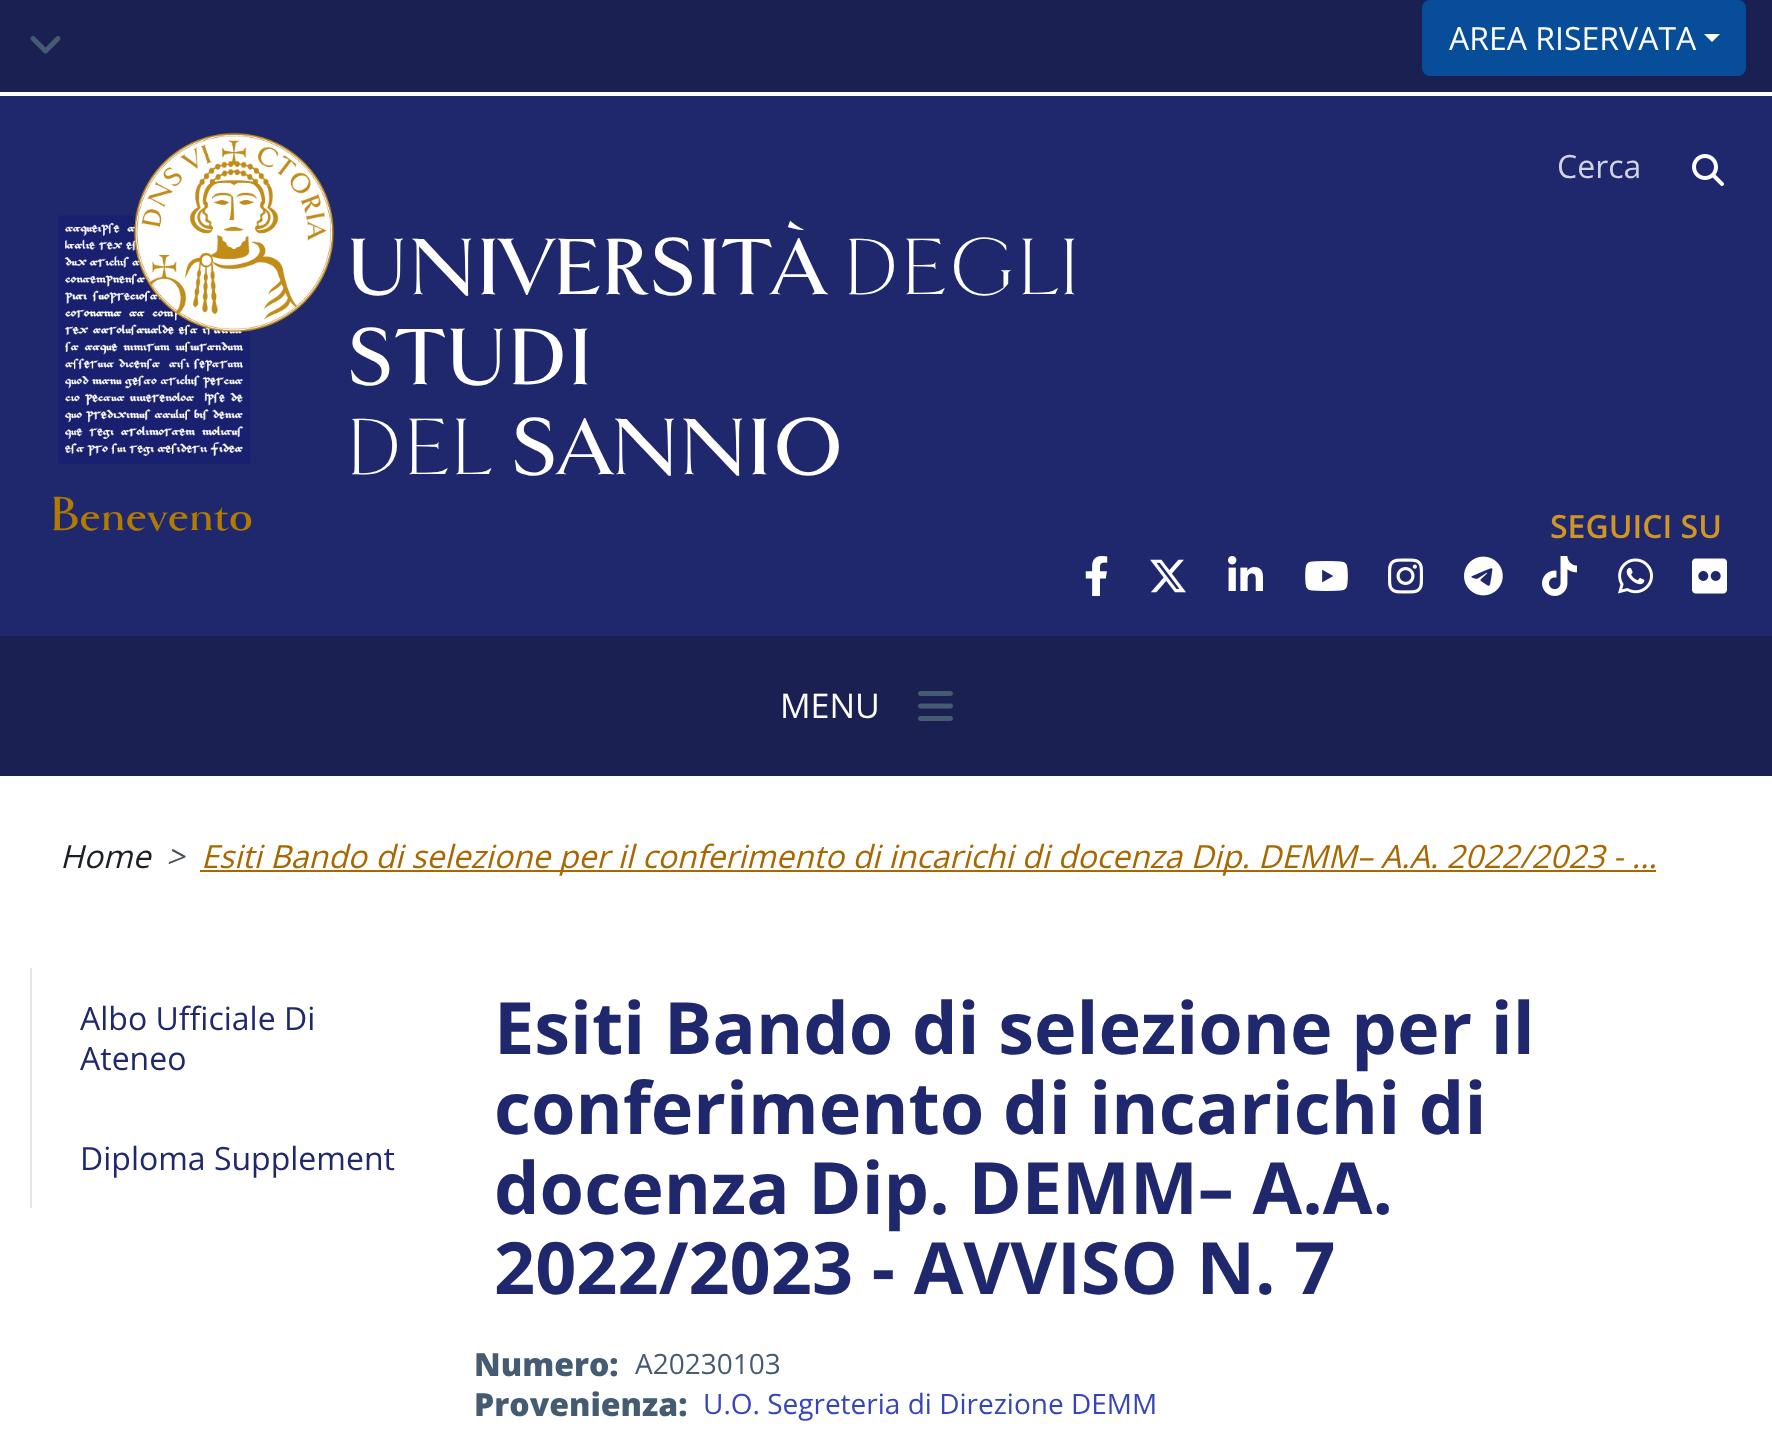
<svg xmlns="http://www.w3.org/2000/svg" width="1772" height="1442">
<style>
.a{font:32px Open Sans;fill:#fff}
.b{font:84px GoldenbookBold;fill:#fff}
.c{font:84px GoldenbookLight;fill:#fff}
.d{font:50.5px GoldenbookBold;fill:#b17a00}
.e{font:32px Open Sans;fill:#d2d4e2}
.f{font:600 32px Open Sans;fill:#cf9625}
.g{font:34px Open Sans;fill:#fff}
.h{font:italic 32px Open Sans;fill:#1c2024}
.i{font:italic 32px Open Sans;fill:#495057}
.j{font:italic 32px Open Sans;fill:#a96700}
.k{font:32px Open Sans;fill:#20286d}
.l{font:bold 72px Open Sans;fill:#20286d}
.m{font:800 32px Open Sans;fill:#455b71}
.n{font:28px Open Sans;fill:#455b71}
.o{font:28px Open Sans;fill:#3745bc}
</style>
<rect width="100%" height="100%" fill="#fff"/>
<path fill="#1b2053" d="M0 0h1772v92H0z"/>
<image href="1.png" x="30" y="36" width="31" height="18"/>
<rect fill="#074d99" stroke="#074d99" stroke-width="2" x="1423" y="1" width="322" height="74" rx="7"/>
<path fill="#fff" d="M1704 34h16l-8 8z"/>
<path fill="#20286d" d="M0 96h1772v540H0z"/>
<image href="2.png" x="58" y="132" width="276" height="332"/>
<image href="3.png" x="1692" y="154" width="32" height="32"/>
<image href="4.png" x="1085" y="556" width="23" height="40"/>
<image href="5.png" x="1150" y="559" width="36" height="34"/>
<image href="6.png" x="1228" y="556" width="35" height="35"/>
<image href="7.png" x="1305" y="561" width="43" height="30"/>
<image href="8.png" x="1388" y="558" width="35" height="36"/>
<image href="9.png" x="1464" y="556" width="39" height="40"/>
<image href="10.png" x="1542" y="556" width="35" height="40"/>
<image href="11.png" x="1618" y="558" width="35" height="36"/>
<image href="12.png" x="1692" y="558" width="35" height="36"/>
<path fill="#1b2053" d="M0 636h1772v140H0z"/>
<image href="13.png" x="918" y="691" width="35" height="30"/>
<path fill="#a96700" d="M200 870h1456v2H200z"/>
<path fill="#e5e5e5" d="M30 968h2v240H30z"/>
<text class="a" x="1449" y="50">AREA RISERVATA</text>
<text class="b" x="346" y="294">UNIVERSITÀ</text>
<text class="c" x="843" y="294">DEGLI</text>
<text class="b" x="346" y="384">STUDI</text>
<text class="c" x="346" y="474">DEL</text>
<text class="b" x="510" y="474">SANNIO</text>
<text class="d" x="50" y="530">Benevento</text>
<text class="e" x="1557" y="178">Cerca</text>
<text class="f" x="1550" y="538">SEGUICI SU</text>
<text class="g" x="780" y="718">MENU</text>
<text class="h" x="60" y="868">Home</text>
<text class="i" x="166" y="868">&gt;</text>
<text class="j" x="201" y="868">Esiti Bando di selezione per il conferimento di incarichi di docenza Dip. DEMM– A.A. 2022/2023 - ...</text>
<text class="k" x="80" y="1030">Albo Ufficiale Di</text>
<text class="k" x="80" y="1070">Ateneo</text>
<text class="k" x="80" y="1170">Diploma Supplement</text>
<text class="l" x="494" y="1054">Esiti Bando di selezione per il</text>
<text class="l" x="494" y="1134">conferimento di incarichi di</text>
<text class="l" x="494" y="1214">docenza Dip. DEMM– A.A.</text>
<text class="l" x="494" y="1294">2022/2023 - AVVISO N. 7</text>
<text class="m" x="474" y="1376">Numero:</text>
<text class="n" x="635" y="1374">A20230103</text>
<text class="m" x="474" y="1416">Provenienza:</text>
<text class="o" x="703" y="1414">U.O. Segreteria di Direzione DEMM</text>
</svg>
